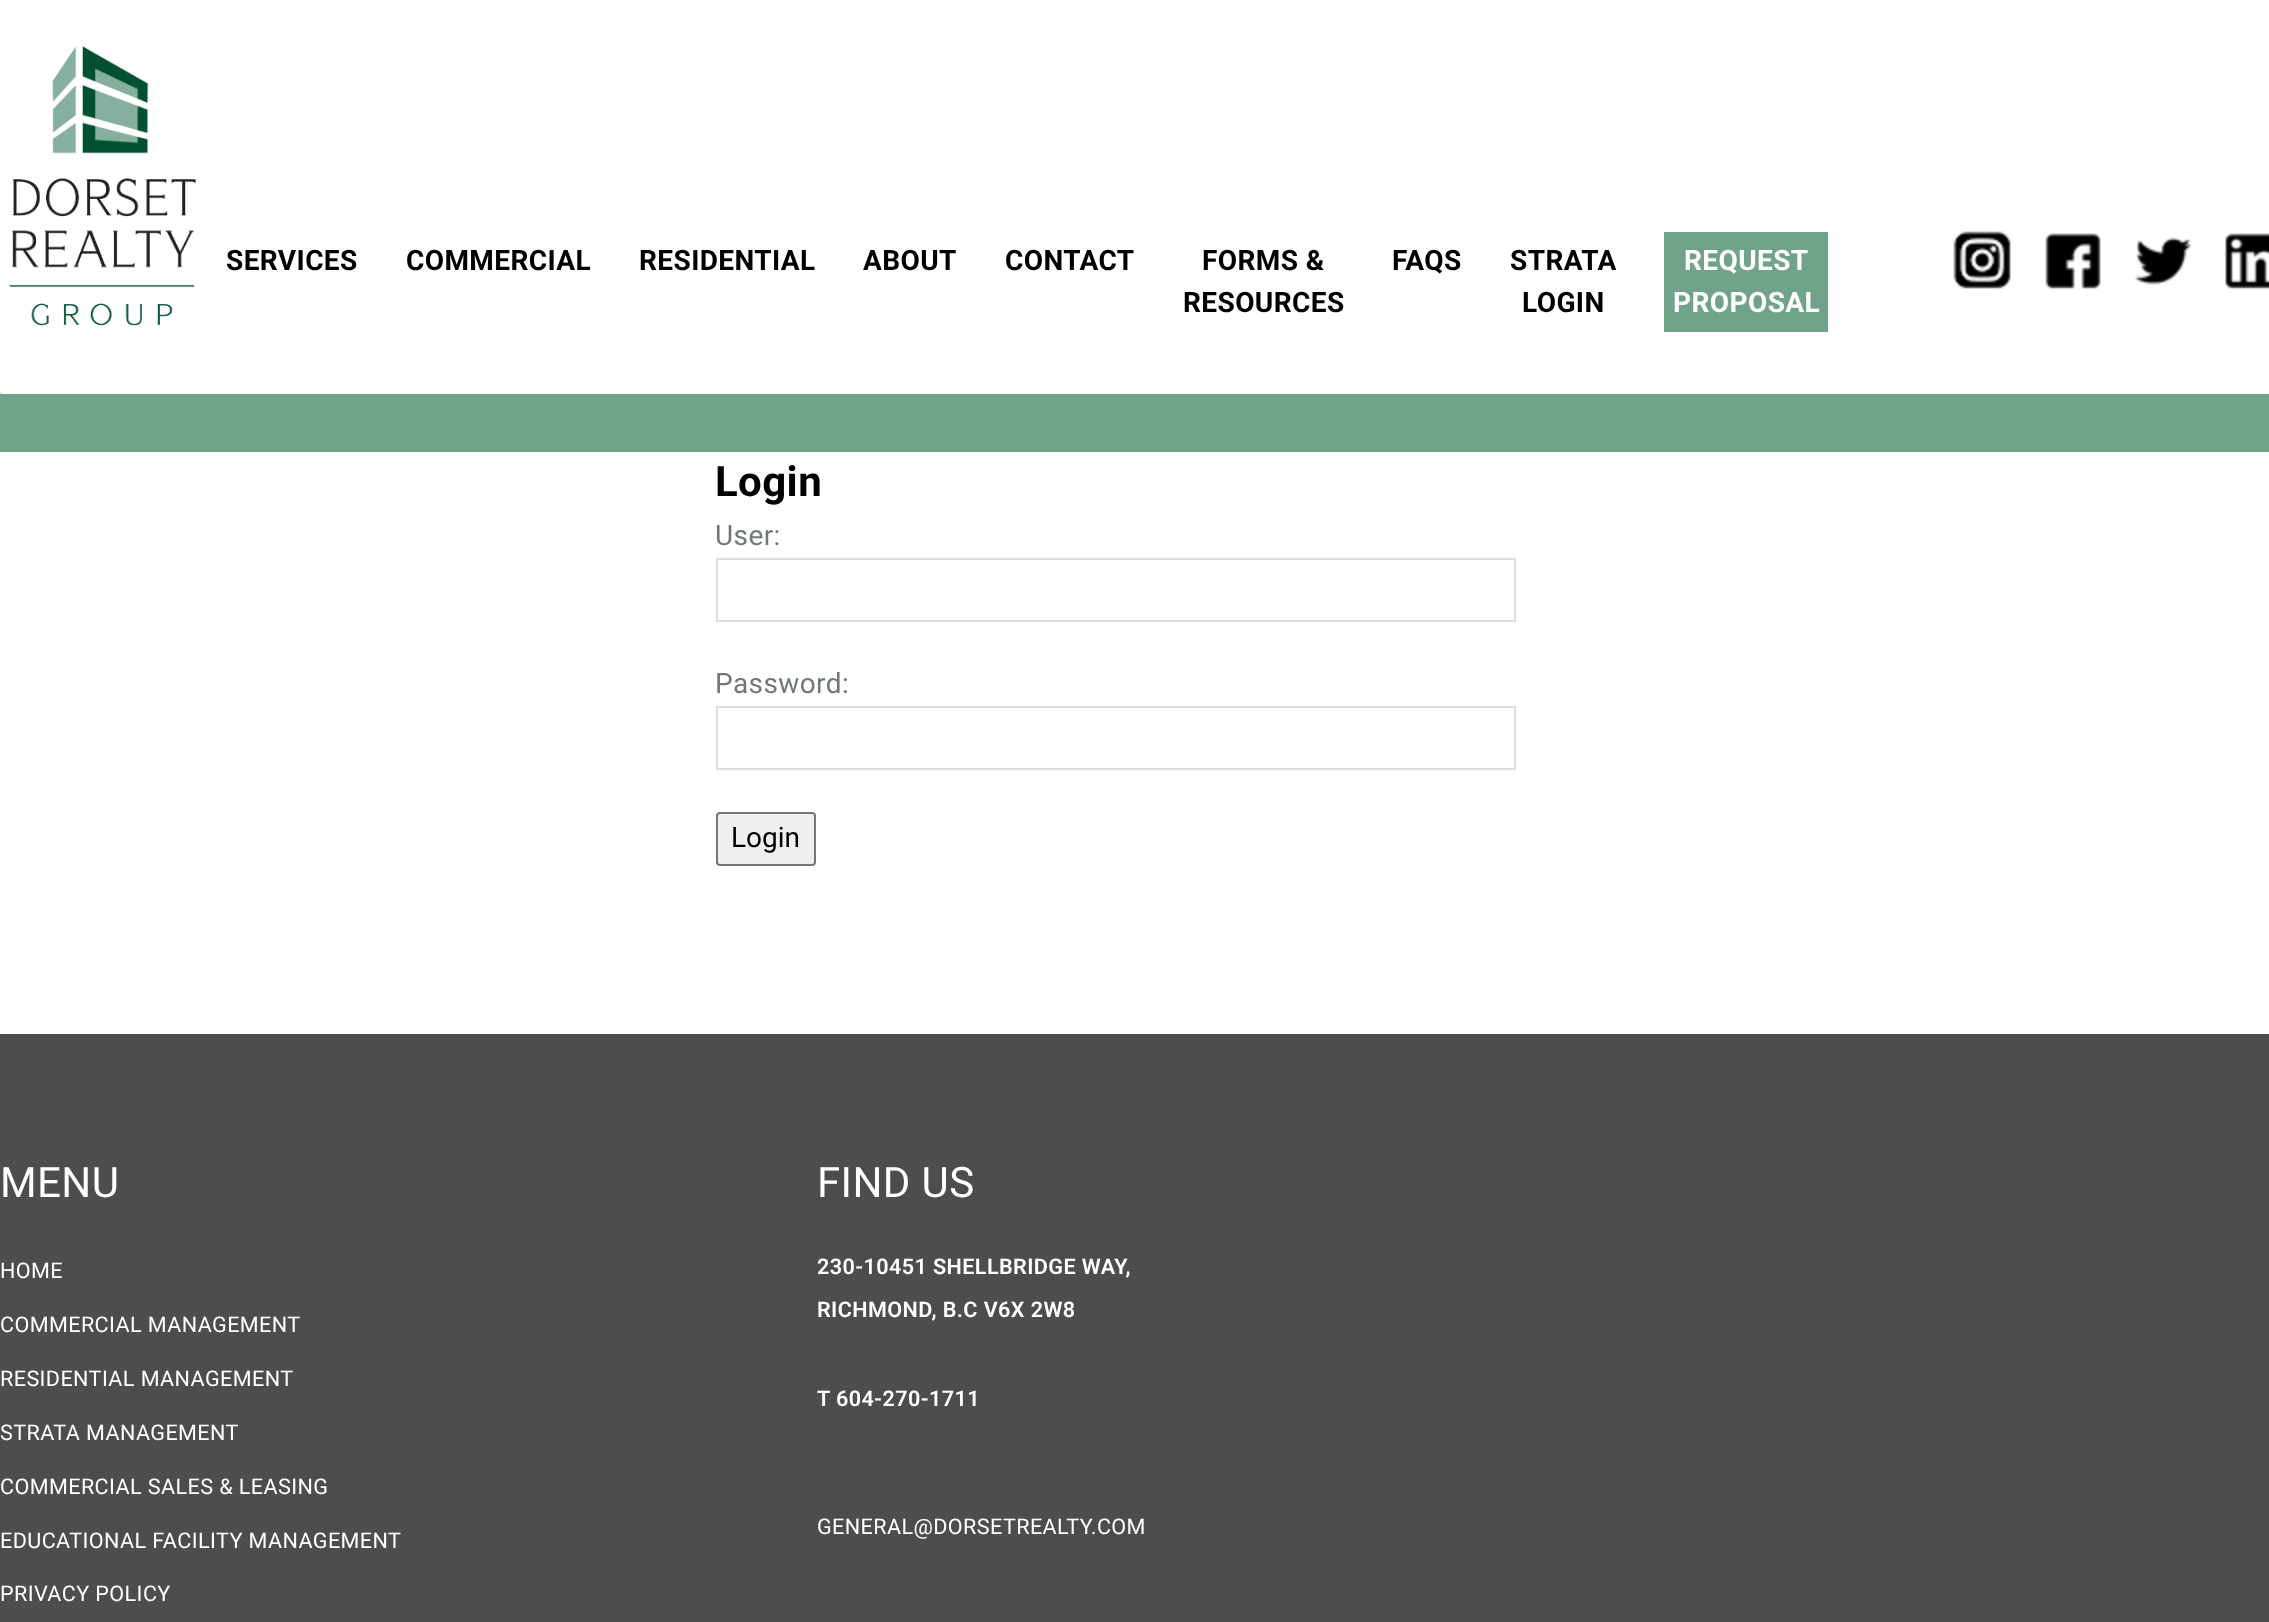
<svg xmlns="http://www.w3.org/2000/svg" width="2269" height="1622">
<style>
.a{font:bold 28px Roboto;letter-spacing:0.4px;fill:#000}
.b{font:bold 28px Roboto;letter-spacing:0.4px;fill:#fff}
.c{font:bold 42px Roboto;letter-spacing:0.4px;fill:#000}
.d{font:28px Roboto;letter-spacing:0.4px;fill:#72777a}
.e{font:28px Roboto;fill:#000}
.f{font:42px Roboto;letter-spacing:0.4px;fill:#fff}
.g{font:21.6px Roboto;letter-spacing:0.4px;fill:#fff}
.h{font:600 21.6px Roboto;letter-spacing:0.4px;fill:#fff}
</style>
<rect width="100%" height="100%" fill="#fff"/>
<image href="1.png" x="9" y="46" width="187" height="280"/>
<path fill="#71a28a" d="M1664 232h164v100H1664z"/>
<image href="2.png" x="1953" y="231" width="58" height="58"/>
<image href="3.png" x="2045" y="233" width="56" height="56"/>
<image href="4.png" x="2135" y="237" width="57" height="48"/>
<image href="5.png" x="2224" y="233" width="45" height="56"/>
<path fill="#dce9e3" d="M0 392h2v2H0z"/>
<path fill="#71a28a" d="M0 394h2269v58H0z"/>
<path fill="none" stroke="#dcddde" stroke-width="2" d="M717 559h798v62H717z"/>
<path fill="none" stroke="#dcddde" stroke-width="2" d="M717 707h798v62H717z"/>
<rect fill="#efefef" stroke="#767676" stroke-width="2" x="717" y="813" width="98" height="52" rx="3"/>
<path fill="#4d4d4f" d="M0 1034h2269v588H0z"/>
<text class="a" x="226" y="270">SERVICES</text>
<text class="a" x="406" y="270">COMMERCIAL</text>
<text class="a" x="639" y="270">RESIDENTIAL</text>
<text class="a" x="863" y="270">ABOUT</text>
<text class="a" x="1005" y="270">CONTACT</text>
<text class="a" x="1202" y="270">FORMS &amp;</text>
<text class="a" x="1183" y="312">RESOURCES</text>
<text class="a" x="1392" y="270">FAQS</text>
<text class="a" x="1510" y="270">STRATA</text>
<text class="a" x="1522" y="312">LOGIN</text>
<text class="b" x="1684" y="270">REQUEST</text>
<text class="b" x="1673" y="312">PROPOSAL</text>
<text class="c" x="715" y="496">Login</text>
<text class="d" x="715" y="545">User:</text>
<text class="d" x="715" y="693">Password:</text>
<text class="e" x="731" y="847">Login</text>
<text class="f" x="0" y="1197">MENU</text>
<text class="g" x="0" y="1278">HOME</text>
<text class="g" x="0" y="1332">COMMERCIAL MANAGEMENT</text>
<text class="g" x="0" y="1386">RESIDENTIAL MANAGEMENT</text>
<text class="g" x="0" y="1440">STRATA MANAGEMENT</text>
<text class="g" x="0" y="1494">COMMERCIAL SALES &amp; LEASING</text>
<text class="g" x="0" y="1548">EDUCATIONAL FACILITY MANAGEMENT</text>
<text class="g" x="0" y="1601">PRIVACY POLICY</text>
<text class="f" x="817" y="1197">FIND US</text>
<text class="h" x="817" y="1274">230-10451 SHELLBRIDGE WAY,</text>
<text class="h" x="817" y="1317">RICHMOND, B.C V6X 2W8</text>
<text class="h" x="817" y="1406">T 604-270-1711</text>
<text class="g" x="817" y="1534">GENERAL@DORSETREALTY.COM</text>
</svg>
